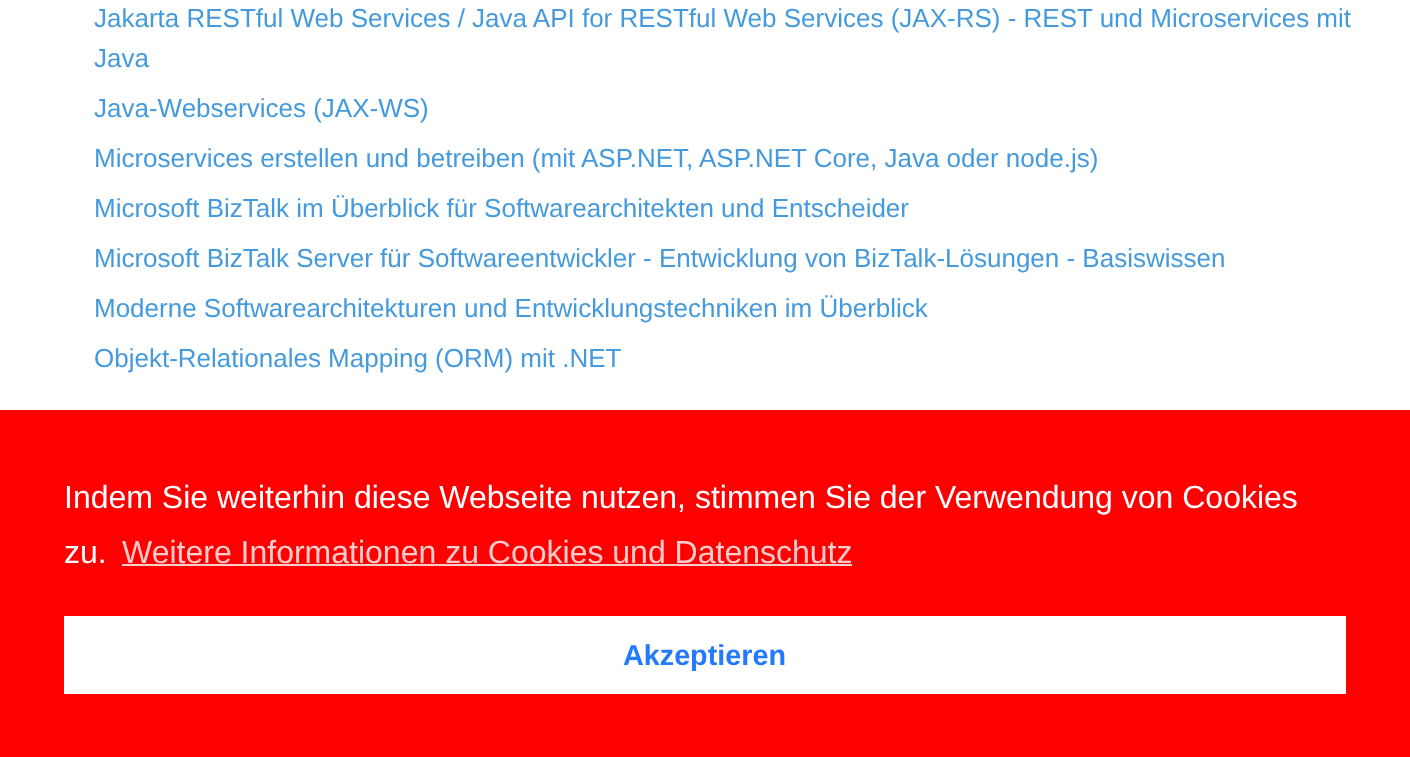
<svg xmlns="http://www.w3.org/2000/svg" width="1410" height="757">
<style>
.a{font:26px Liberation Sans;fill:#449adc}
.b{font:32px Liberation Sans;fill:#fff}
.c{font:32px Liberation Sans;fill:#fcc}
.d{font:bold 28.75px Liberation Sans;fill:#237afc}
</style>
<rect width="100%" height="100%" fill="#fff"/>
<path fill="#f00" d="M0 410h1410v347H0z"/>
<path fill="#fcc" d="M122 564h730v2H122z"/>
<path fill="#fff" d="M64 616h1282v78H64z"/>
<text class="a" x="94" y="27">Jakarta RESTful Web Services / Java API for RESTful Web Services (JAX-RS) - REST und Microservices mit</text>
<text class="a" x="94" y="67">Java</text>
<text class="a" x="94" y="117">Java-Webservices (JAX-WS)</text>
<text class="a" x="94" y="167">Microservices erstellen und betreiben (mit ASP.NET, ASP.NET Core, Java oder node.js)</text>
<text class="a" x="94" y="217">Microsoft BizTalk im Überblick für Softwarearchitekten und Entscheider</text>
<text class="a" x="94" y="267">Microsoft BizTalk Server für Softwareentwickler - Entwicklung von BizTalk-Lösungen - Basiswissen</text>
<text class="a" x="94" y="317">Moderne Softwarearchitekturen und Entwicklungstechniken im Überblick</text>
<text class="a" x="94" y="367">Objekt-Relationales Mapping (ORM) mit .NET</text>
<text class="b" x="64" y="508">Indem Sie weiterhin diese Webseite nutzen, stimmen Sie der Verwendung von Cookies</text>
<text class="b" x="64" y="563">zu.</text>
<text class="c" x="122" y="563">Weitere Informationen zu Cookies und Datenschutz</text>
<text class="d" x="623" y="665">Akzeptieren</text>
</svg>
